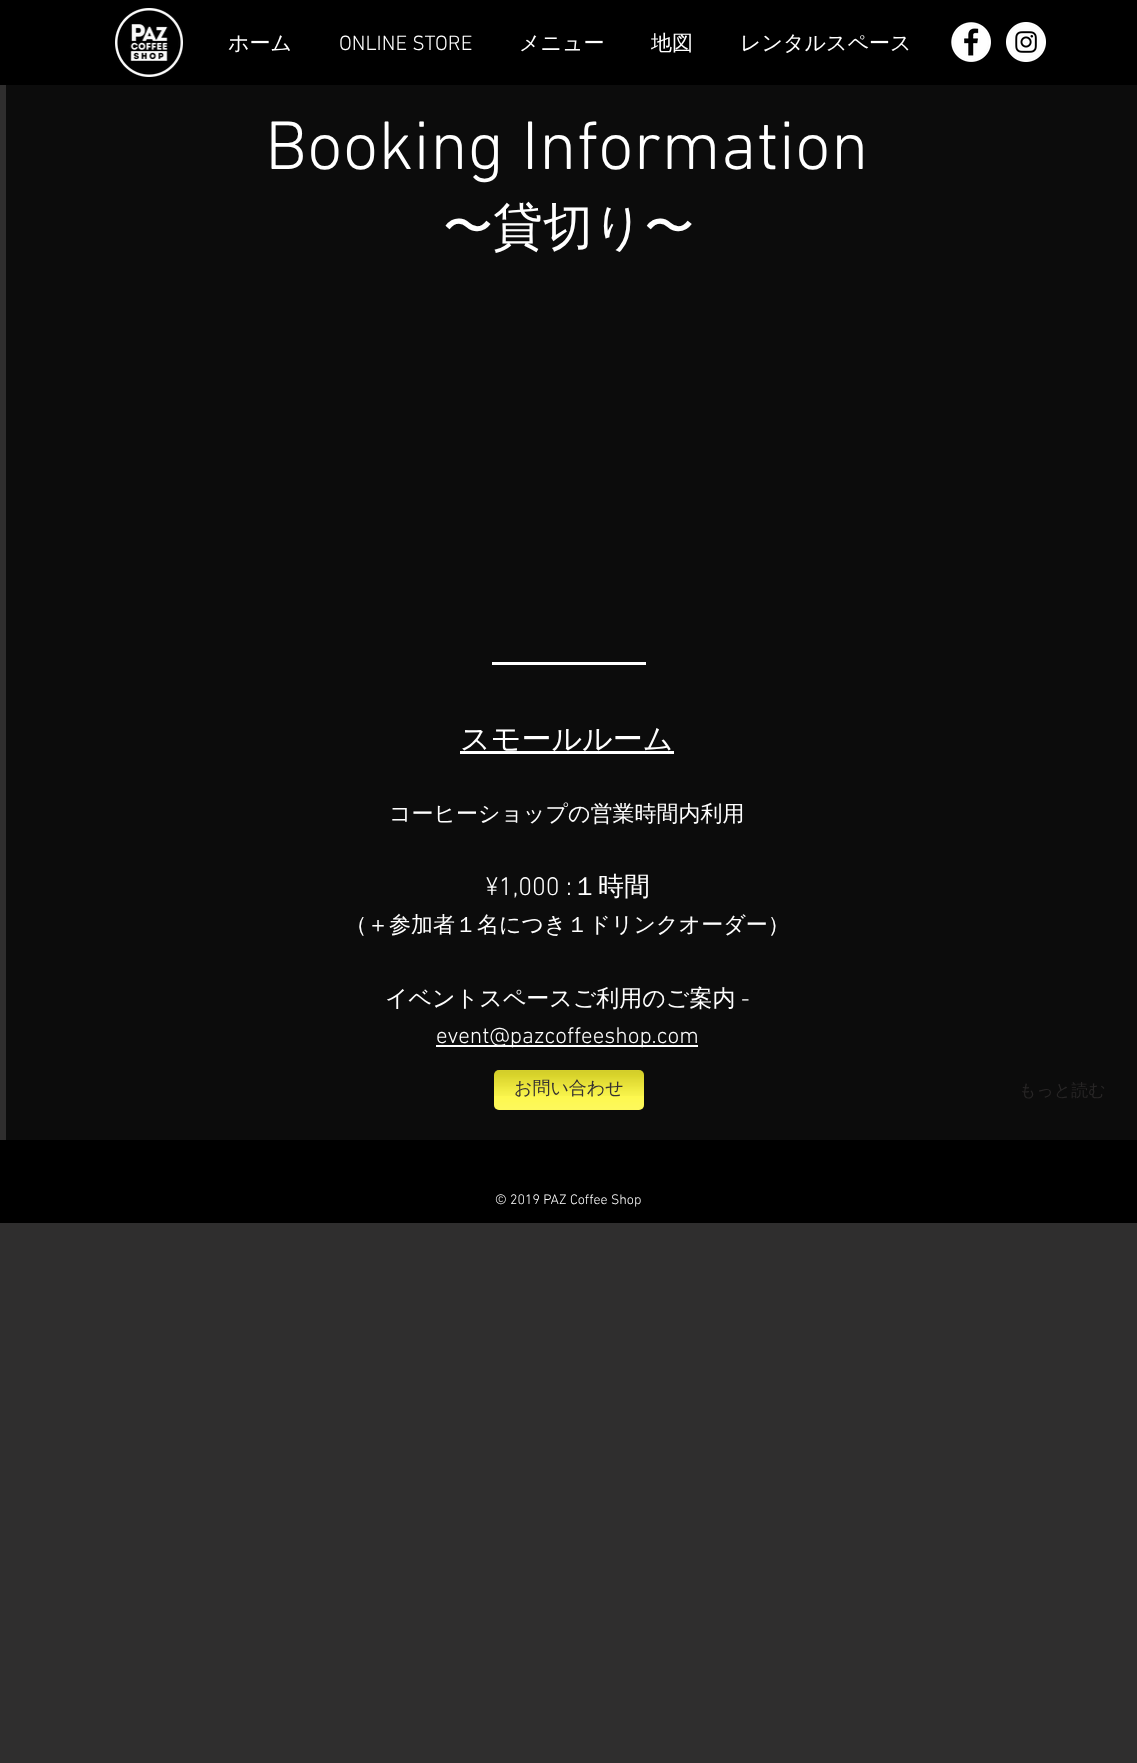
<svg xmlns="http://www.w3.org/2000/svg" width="1137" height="1763">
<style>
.a{font:500 21px WenQuanYi Zen Hei;fill:#fff}
.b{font:300 21px 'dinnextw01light';fill:#fff}
.c{font:300 70px 'dinnextw01light';fill:#fff}
.d{font:500 50px WenQuanYi Zen Hei;fill:#fff}
.e{font:500 30px WenQuanYi Zen Hei;fill:#fff}
.f{font:500 22px WenQuanYi Zen Hei;fill:#fff}
.g{font:300 26px 'dinnextw01light';fill:#fff}
.h{font:500 26px WenQuanYi Zen Hei;fill:#fff}
.i{font:500 23px WenQuanYi Zen Hei;fill:#fff}
.j{font:300 23px 'dinnextw01light';fill:#fff}
.k{font:500 18px WenQuanYi Zen Hei;fill:#353131}
.l{font:500 17px WenQuanYi Zen Hei;fill:#282626}
.m{font:300 14px 'dinnextw01light';fill:#fff}
</style>
<rect width="100%" height="100%" fill="#2f2e2e"/>
<path fill="#000" d="M0 0h1137v85H0z"/>
<image href="1.png" x="115" y="8" width="68" height="69"/>
<image href="2.png" x="951" y="22" width="40" height="40"/>
<image href="3.png" x="1006" y="22" width="40" height="40"/>
<path fill="#0c0c0c" d="M6 85h1131v1055H6z"/>
<path fill="#fff" d="M492 662h154v3H492z"/>
<path fill="#fff" d="M460 751h214v3H460z"/>
<path fill="#fff" d="M436 1045h262v2H436z"/>
<rect fill="#fdf733" x="494" y="1070" width="150" height="40" rx="5"/>
<image href="4.png" x="494" y="1070" width="150" height="26"/>
<image href="5.png" x="494" y="1077" width="150" height="33"/>
<path fill="#000" d="M0 1140h1137v83H0z"/>
<text class="a" x="228" y="50">ホーム</text>
<text class="b" x="339" y="50">ONLINE STORE</text>
<text class="a" x="519" y="50">メニュー</text>
<text class="a" x="651" y="50">地図</text>
<text class="a" x="740" y="50">レンタルスペース</text>
<text class="c" x="265" y="169">Booking Information</text>
<text class="d" x="443" y="244">〜貸切り〜</text>
<text class="e" x="460" y="749">スモールルーム</text>
<text class="f" x="389" y="821">コーヒーショップの営業時間内利用</text>
<text class="g" x="485" y="895">¥1,000 :</text>
<text class="h" x="572" y="895">１時間</text>
<text class="f" x="345" y="932">（＋参加者１名につき１ドリンクオーダー）</text>
<text class="i" x="385" y="1006">イベントスペースご利用のご案内</text>
<text class="j" x="741" y="1006">-</text>
<text class="j" x="436" y="1043">event@pazcoffeeshop.com</text>
<text class="k" x="514" y="1094">お問い合わせ</text>
<text class="l" x="1019" y="1096">もっと読む</text>
<text class="m" x="495" y="1204">© 2019 PAZ Coffee Shop</text>
</svg>
